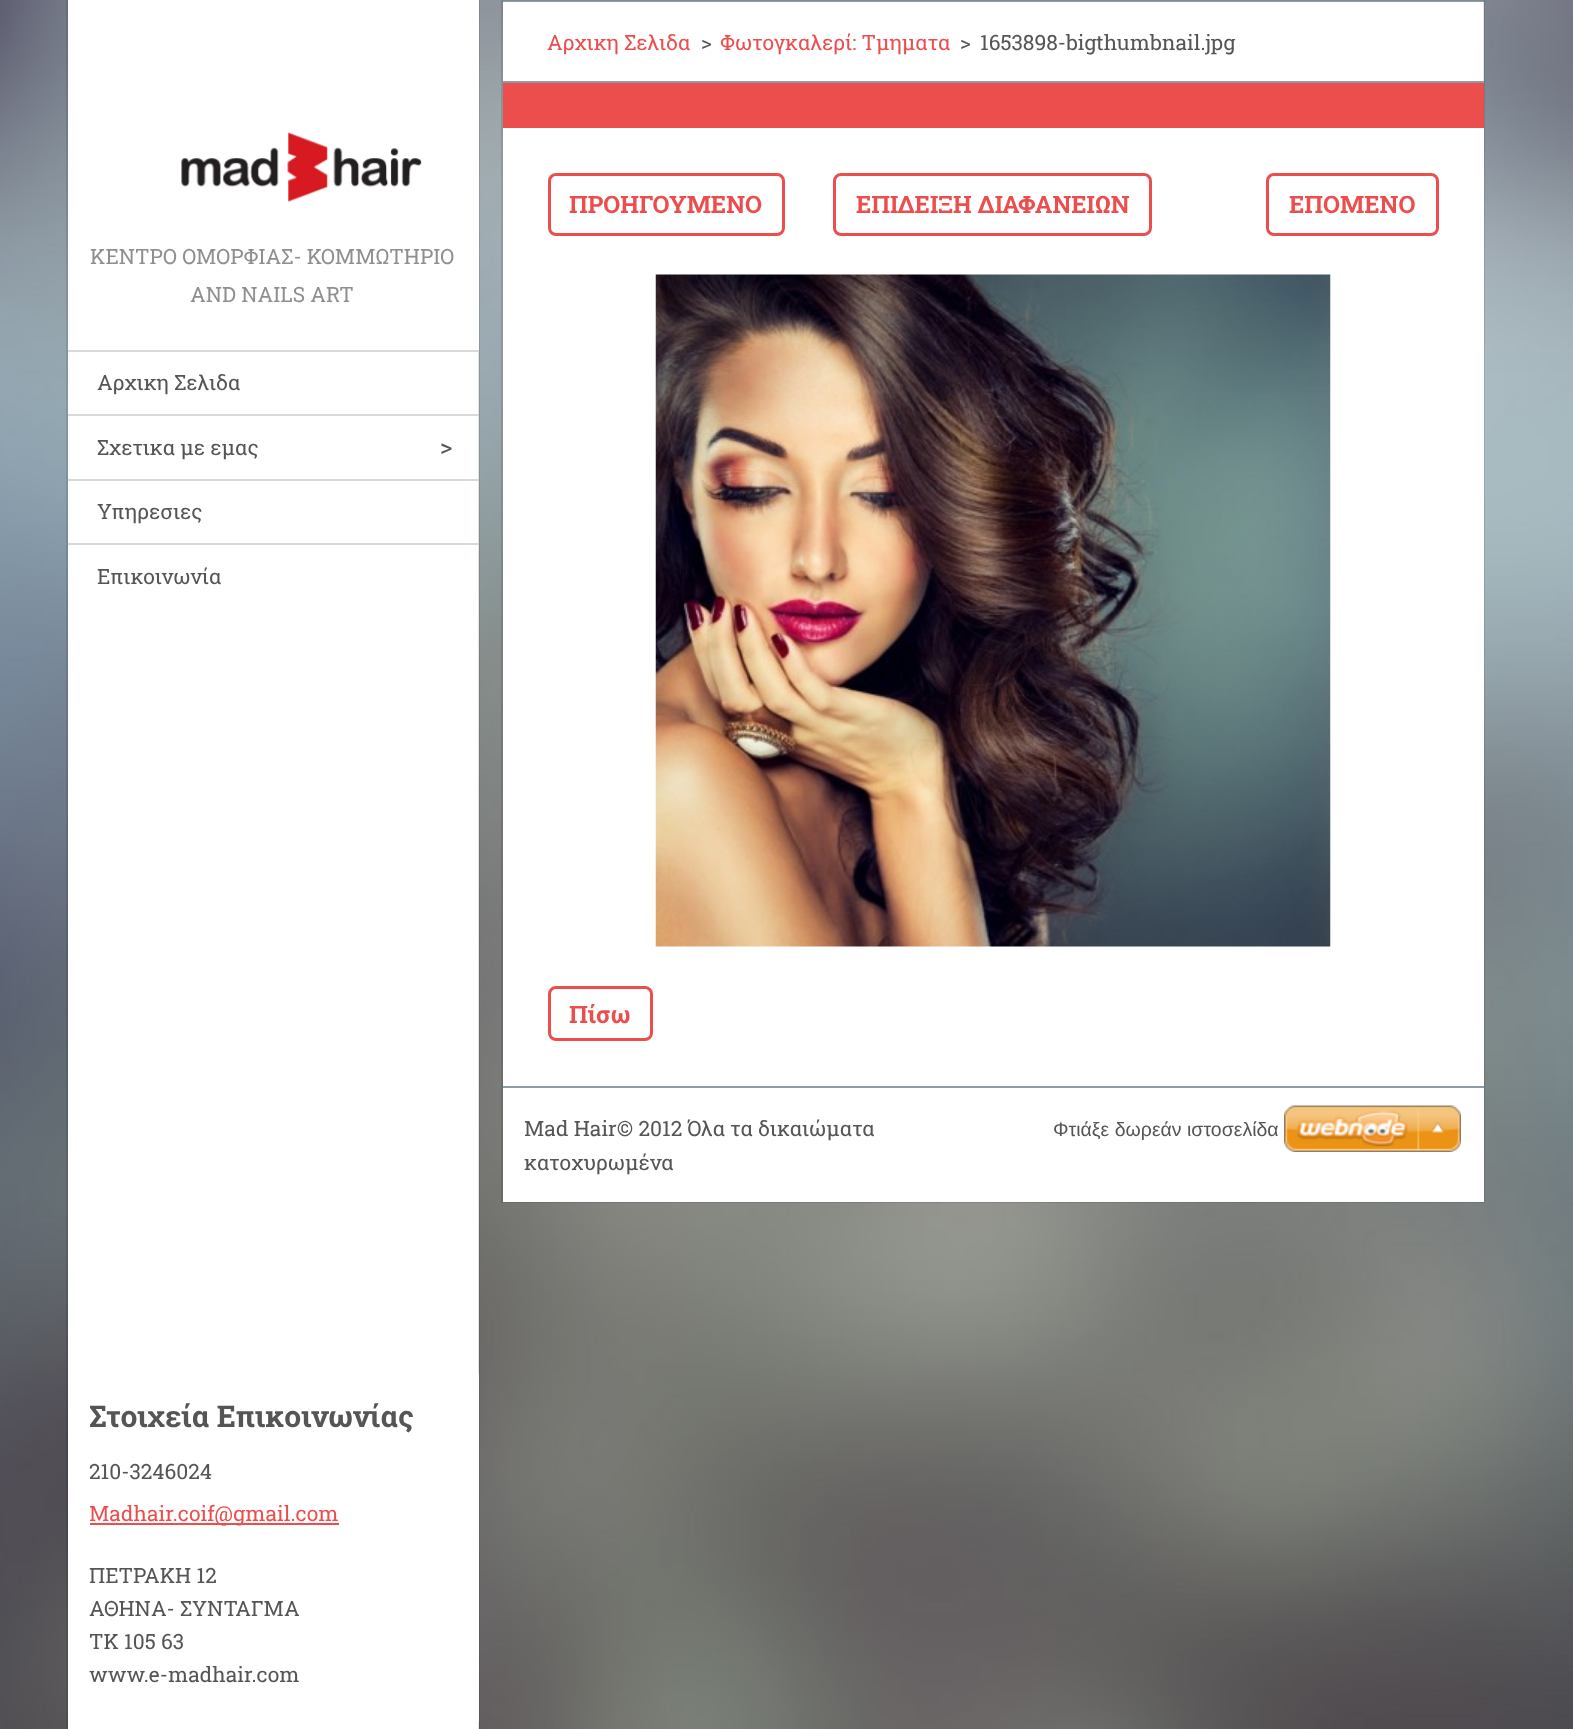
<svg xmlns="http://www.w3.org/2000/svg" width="1573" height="1729">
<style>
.a{font:21px Roboto Slab;fill:#8f8f8f}
.b{font:21px Roboto Slab;fill:#555}
.c{font:24px Roboto Slab;fill:#555}
.d{font:bold 30px Roboto Slab;fill:#555}
.e{font:21px Roboto Slab;fill:#ec4e4e}
.f{font:bold 24px Roboto Slab;fill:#ec4e4e}
.g{font:19.5px Liberation Sans;fill:#555}
</style>
<rect width="100%" height="100%" fill="#fff"/>
<image href="1.png" x="0" y="0" width="1573" height="1729"/>
<path fill="#fff" d="M68 352h411v1377H68z"/>
<path fill="none" stroke="#0000001a" stroke-width="2" d="M67 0h412v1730H67z"/>
<path fill="#fff" d="M68 0h411v350H68z"/>
<image href="2.png" x="181" y="132" width="241" height="71"/>
<path fill="#d9d9d9" d="M68 350h411v2H68z"/>
<path fill="#d9d9d9" d="M68 414h411v2H68z"/>
<path fill="#d9d9d9" d="M68 479h411v2H68z"/>
<path fill="#d9d9d9" d="M68 543h411v2H68z"/>
<path fill="#fff" d="M478 1374h1v348H478z"/>
<path fill="#ec4e4e" d="M90 1523h249v2H90z"/>
<path fill="#fff" d="M503 2h981v79H503z"/>
<path fill="#8d9da3" d="M503 0h981v2H503z"/>
<path fill="none" stroke="#0000001a" stroke-width="2" d="M502 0h982v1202H502z"/>
<path fill="#8d9da3" d="M503 81h981v2H503z"/>
<path fill="#ec4e4e" d="M503 83h981v45H503z"/>
<path fill="#fff" d="M503 128h981v958H503z"/>
<rect fill="none" stroke="#ec4e4e" stroke-width="3" x="549.5" y="174.5" width="234" height="60" rx="6.5"/>
<rect fill="none" stroke="#ec4e4e" stroke-width="3" x="834.5" y="174.5" width="316" height="60" rx="6.5"/>
<rect fill="none" stroke="#ec4e4e" stroke-width="3" x="1267.5" y="174.5" width="170" height="60" rx="6.5"/>
<image href="3.png" x="655" y="274" width="676" height="673"/>
<rect fill="none" stroke="#ec4e4e" stroke-width="3" x="549.5" y="987.5" width="102" height="52" rx="6.5"/>
<path fill="#fff" d="M503 1088h981v114H503z"/>
<path fill="#8d9da3" d="M503 1086h981v2H503z"/>
<image href="4.png" x="1284" y="1105" width="177" height="47"/>
<text class="a" x="90" y="264">ΚΕΝΤΡΟ ΟΜΟΡΦΙΑΣ- ΚΟΜΜΩΤΗΡΙΟ</text>
<text class="a" x="190" y="302">AND NAILS ART</text>
<text class="b" x="97" y="390">Αρχικη Σελιδα</text>
<text class="b" x="97" y="455">Σχετικα με εμας</text>
<text class="c" x="440" y="455">&gt;</text>
<text class="b" x="97" y="519">Υπηρεσιες</text>
<text class="b" x="97" y="584">Επικοινωνία</text>
<text class="d" x="89" y="1427">Στοιχεία Επικοινωνίας</text>
<text class="b" x="89" y="1479">210-3246024</text>
<text class="e" x="89" y="1521">Madhair.coif@gmail.com</text>
<text class="b" x="89" y="1583">ΠΕΤΡΑΚΗ 12</text>
<text class="b" x="89" y="1616">ΑΘΗΝΑ- ΣΥΝΤΑΓΜΑ</text>
<text class="b" x="89" y="1649">TK 105 63</text>
<text class="b" x="89" y="1682">www.e-madhair.com</text>
<text class="e" x="547" y="50">Αρχικη Σελιδα</text>
<text class="b" x="701" y="50">&gt;</text>
<text class="e" x="720" y="50">Φωτογκαλερί: Τμηματα</text>
<text class="b" x="960" y="50">&gt;</text>
<text class="b" x="980" y="50">1653898-bigthumbnail.jpg</text>
<text class="f" x="569" y="213">ΠΡΟΗΓΟΥΜΕΝΟ</text>
<text class="f" x="856" y="213">ΕΠΙΔΕΙΞΗ ΔΙΑΦΑΝΕΙΩΝ</text>
<text class="f" x="1289" y="213">ΕΠΟΜΕΝΟ</text>
<text class="f" x="569" y="1023">Πίσω</text>
<text class="b" x="524" y="1136">Mad Hair© 2012 Όλα τα δικαιώματα</text>
<text class="b" x="524" y="1170">κατοχυρωμένα</text>
<text class="g" x="1053" y="1136">Φτιάξε δωρεάν ιστοσελίδα</text>
</svg>
